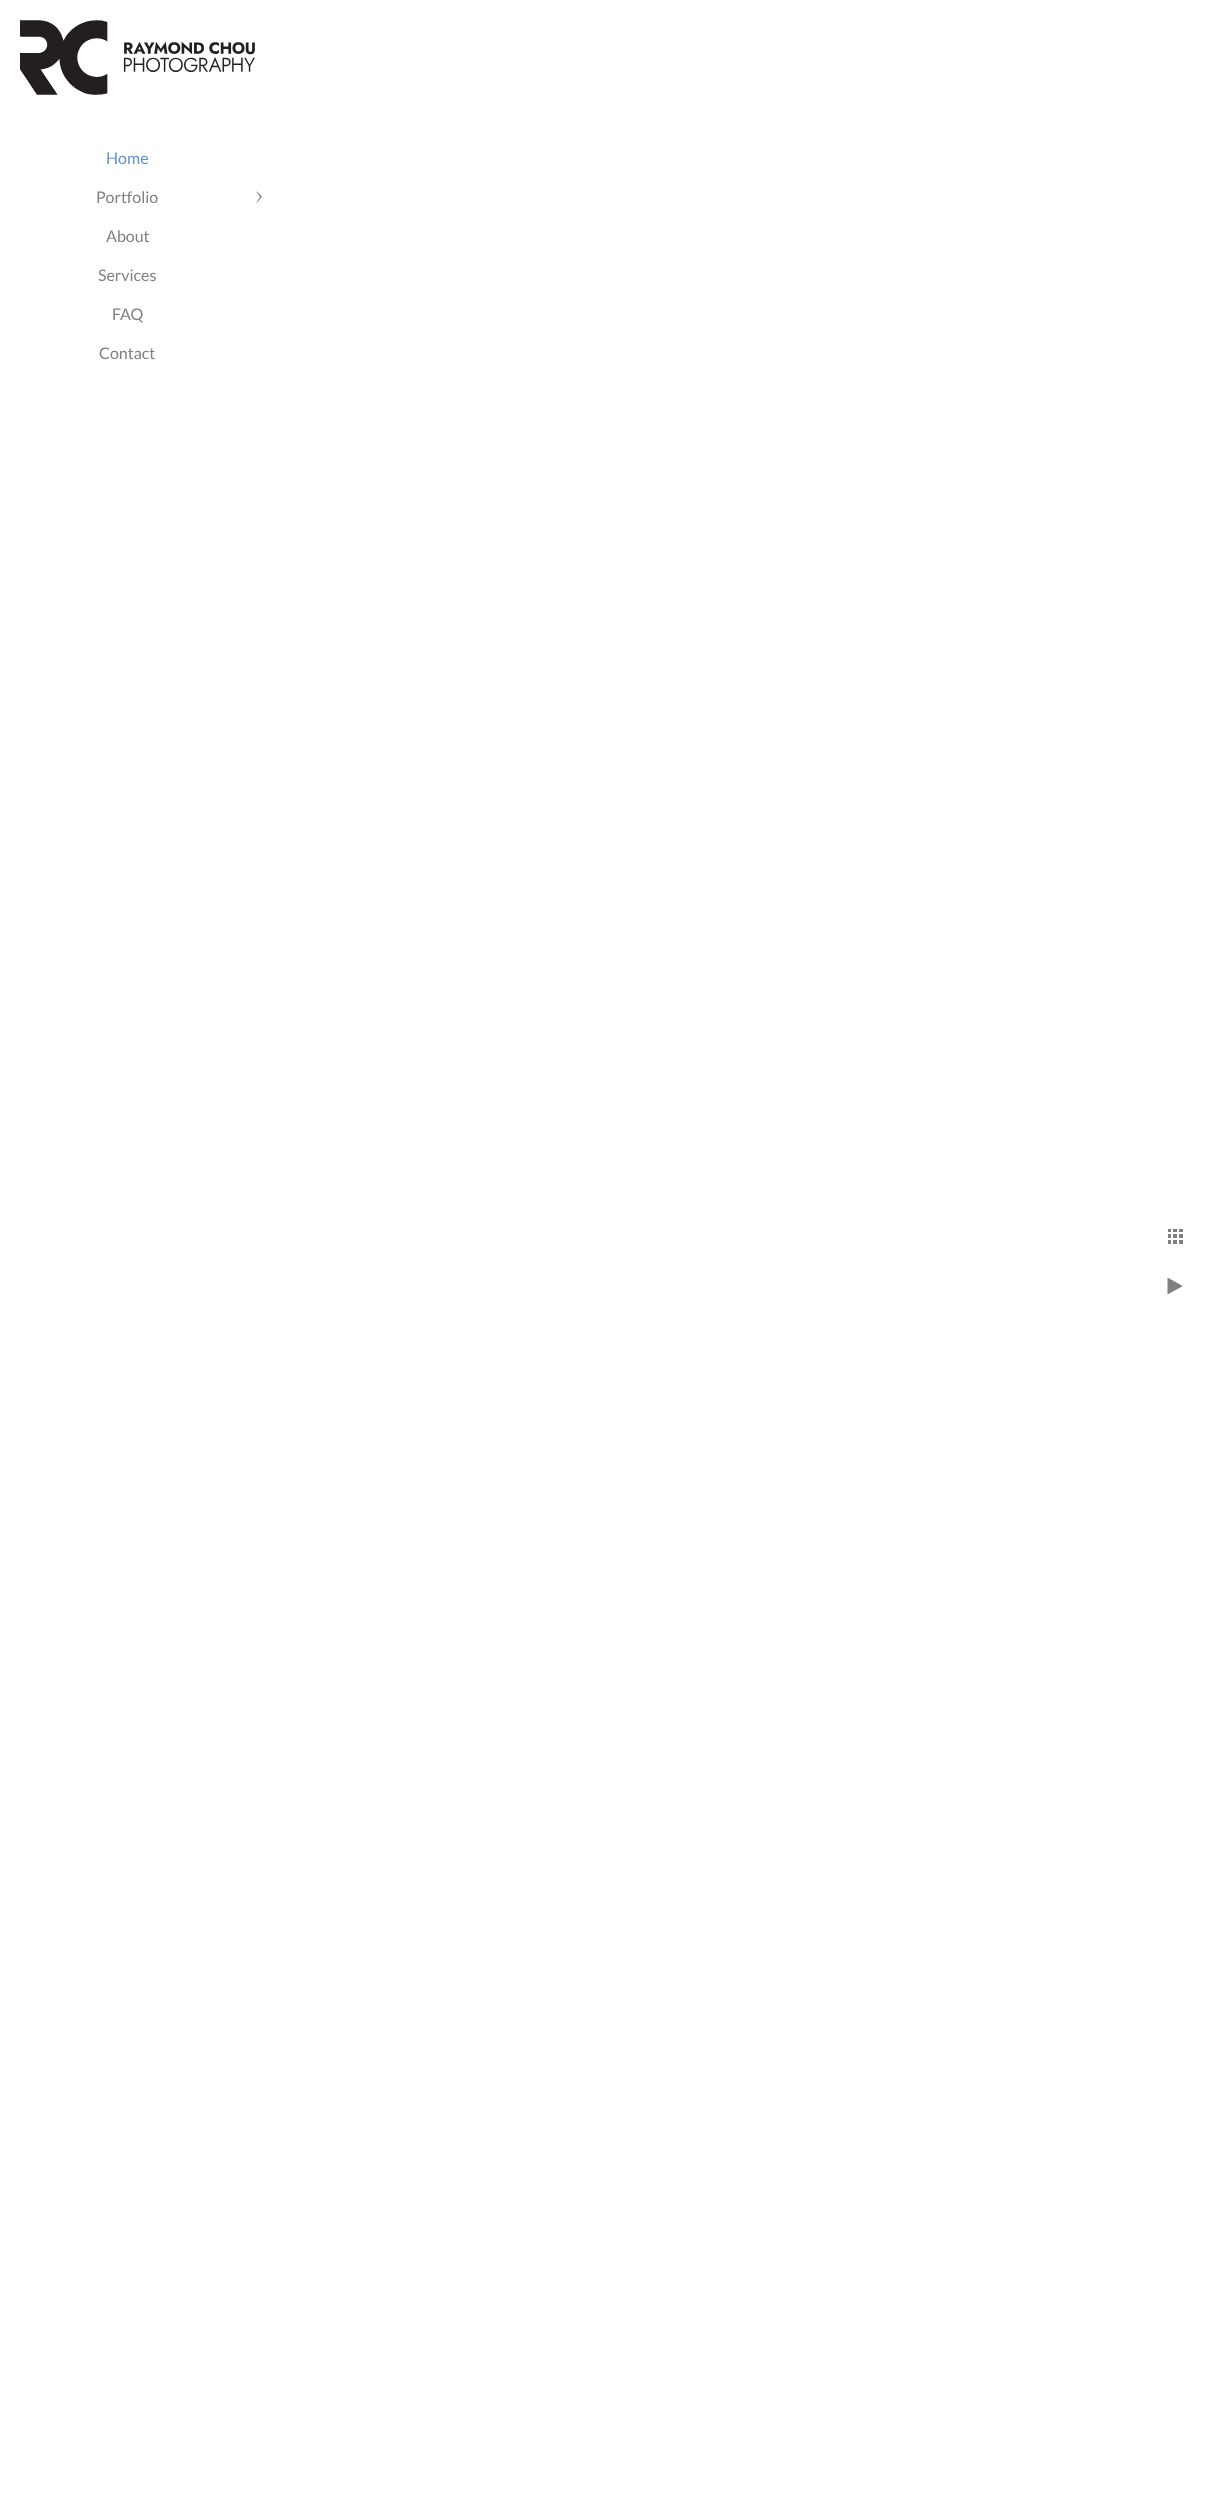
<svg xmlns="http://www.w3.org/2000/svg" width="1205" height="2501">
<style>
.a{font:16px Lato;fill:#6290d9}
.b{font:16px Lato;fill:#808080}
</style>
<rect width="100%" height="100%" fill="#fff"/>
<image href="1.png" x="20" y="20" width="235" height="75"/>
<image href="2.png" x="256" y="191" width="6" height="12"/>
<image href="3.png" x="1168" y="1229" width="15" height="15"/>
<image href="4.png" x="1167" y="1278" width="16" height="16"/>
<text class="a" x="106" y="164">Home</text>
<text class="b" x="96" y="203">Portfolio</text>
<text class="b" x="106" y="242">About</text>
<text class="b" x="98" y="281">Services</text>
<text class="b" x="112" y="320">FAQ</text>
<text class="b" x="99" y="359">Contact</text>
</svg>
